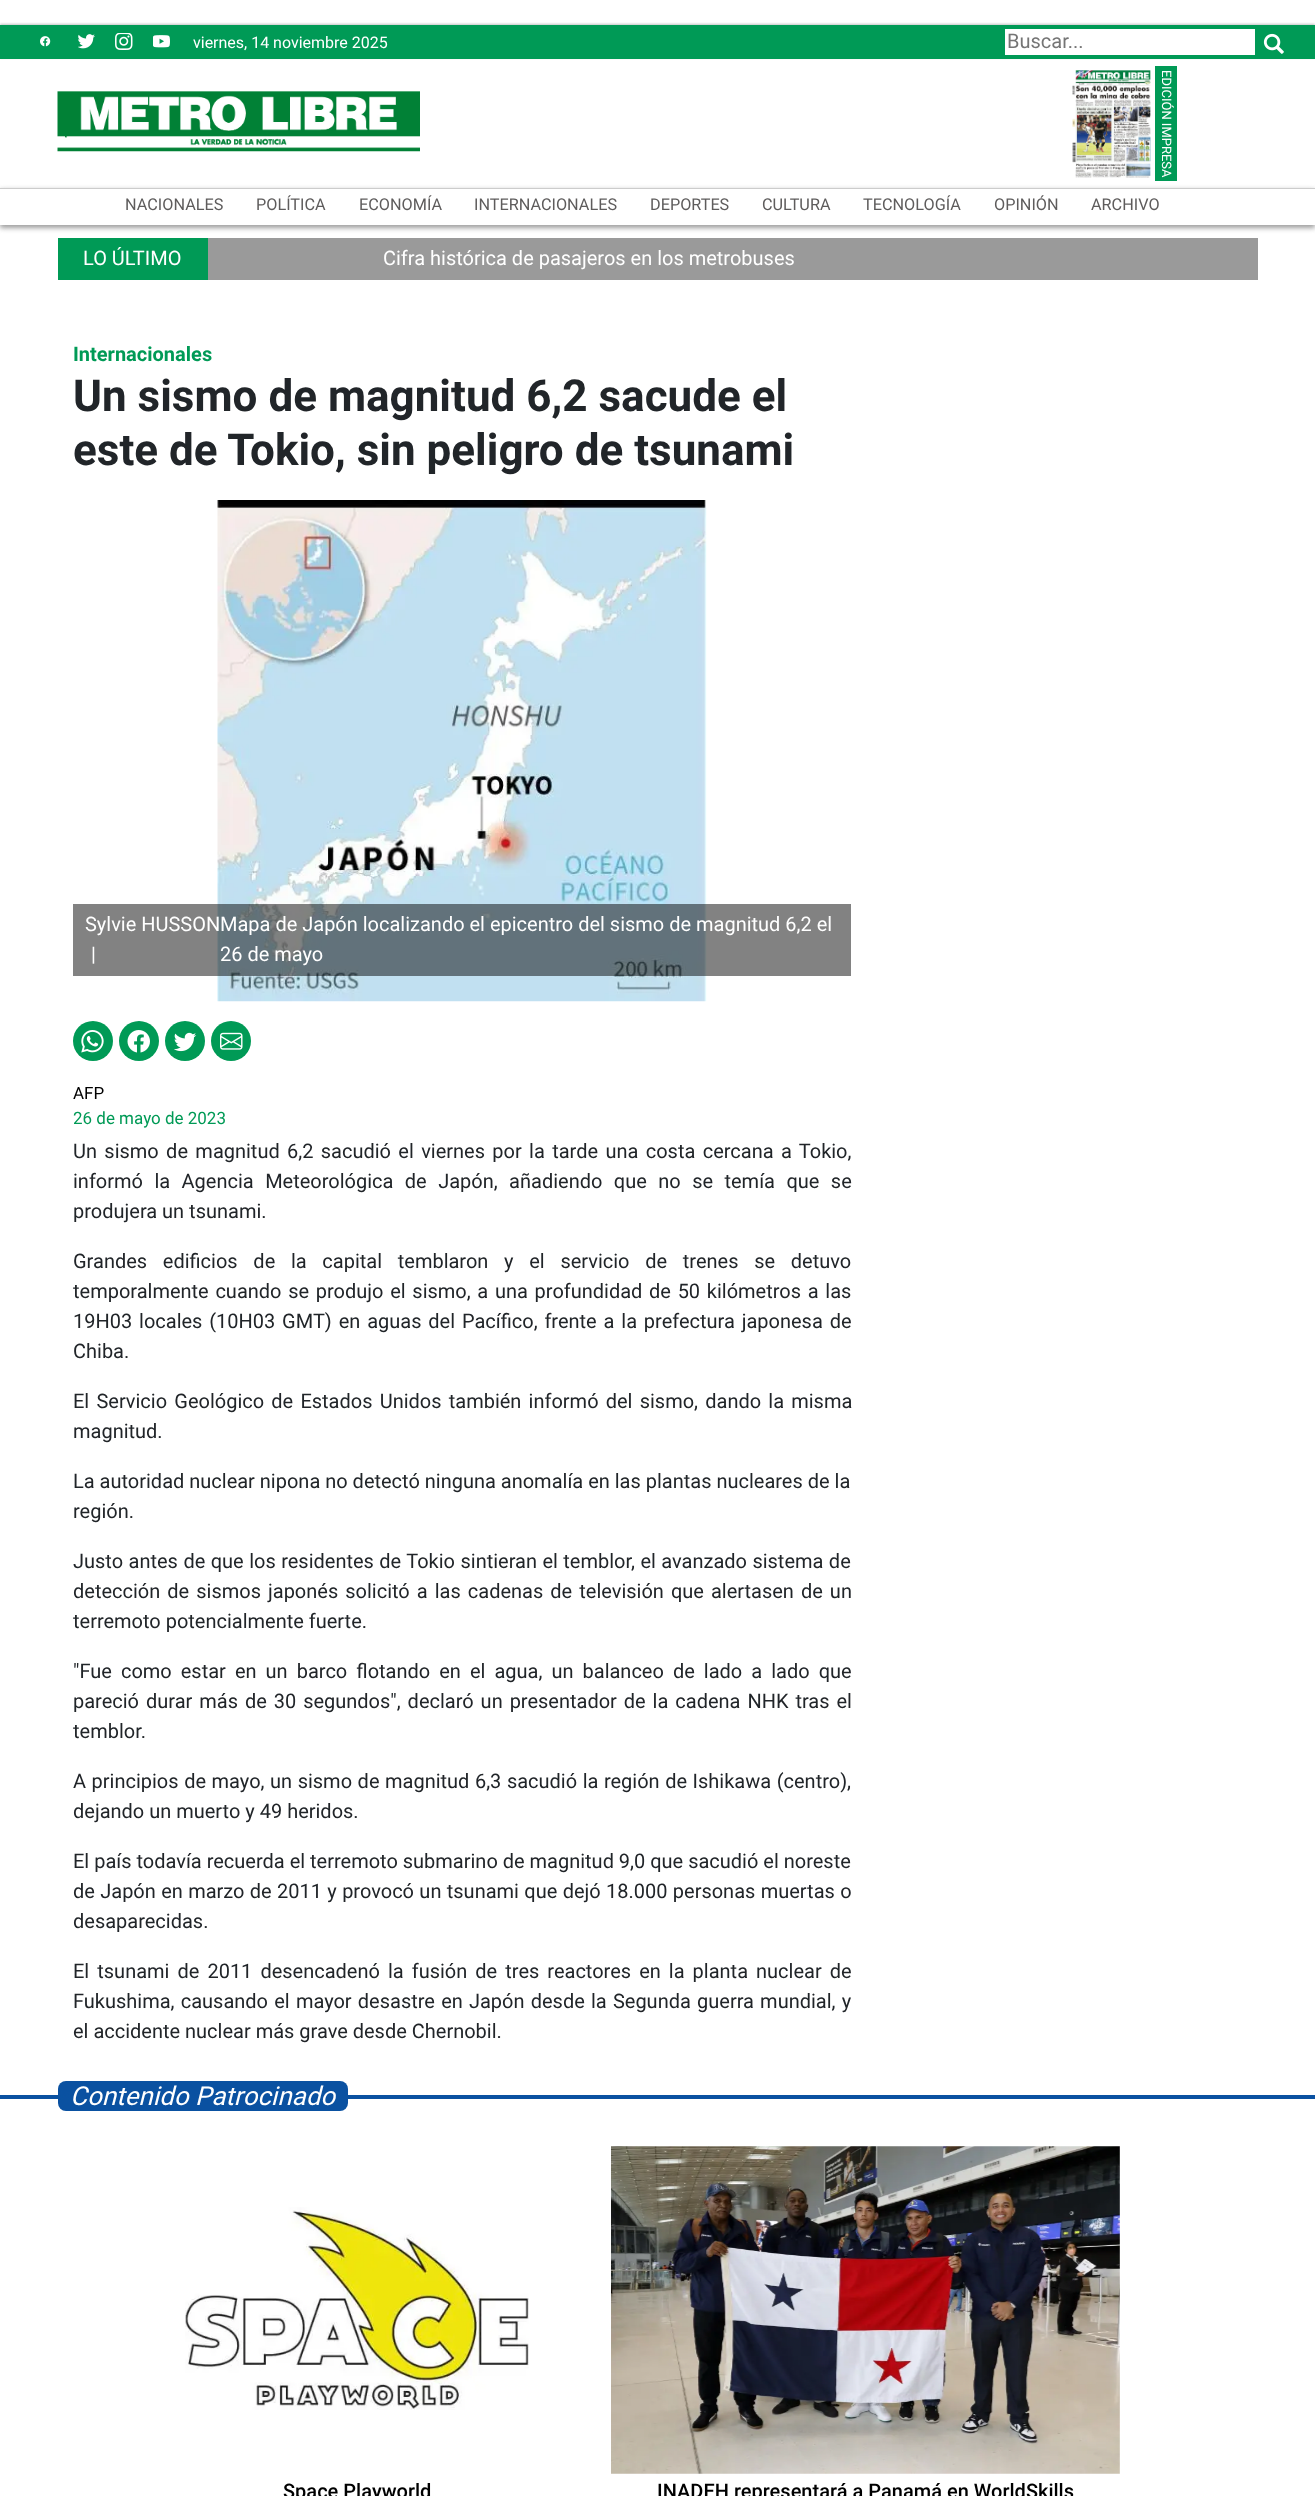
<svg xmlns="http://www.w3.org/2000/svg" width="1315" height="2496">
<style>
.a{font:16px Roboto;fill:#fff}
.b{font:20px Roboto;fill:#757575}
.c{font:13px Roboto;fill:#fff}
.d{font:16.25px Roboto;fill:#5e5c5c}
.e{font:20px Roboto;fill:#fff}
.f{font:bold 20px Roboto;fill:#009a56}
.g{font:bold 44px Roboto;fill:#212529}
.h{font:17px Roboto;fill:#000}
.i{font:17px Roboto;fill:#009a56}
.j{font:20px Roboto;fill:#212529}
.k{font:italic 26px Roboto;fill:#fff}
.l{font:500 20px Roboto;fill:#000}
</style>
<defs>
<clipPath id="clip1"><path d="M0 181h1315v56h-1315zm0 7h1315v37h-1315z" clip-rule="evenodd"/></clipPath>
</defs>
<rect width="100%" height="100%" fill="#fff"/>
<path fill="#85858580" filter="blur(1px)" d="M0 24h1315v34H0z"/>
<path fill="#009a56" d="M0 25h1315v34H0z"/>
<image href="1.png" x="40" y="36" width="11" height="11"/>
<image href="2.png" x="78" y="34" width="17" height="15"/>
<image href="3.png" x="115" y="33" width="18" height="17"/>
<image href="4.png" x="153" y="35" width="17" height="13"/>
<path fill="#fff" d="M1005 29h250v26H1005z"/>
<image href="5.png" x="1263" y="33" width="21" height="21"/>
<image href="6.png" x="57" y="91" width="363" height="61"/>
<image href="7.png" x="1072" y="70" width="79" height="108"/>
<path fill="#009a56" d="M1155 66h22v115H1155z"/>
<g clip-path="url(#clip1)">
<path fill="#858585cc" filter="blur(2.5px)" d="M0 190h1315v38H0z"/>
</g>
<path fill="#ccc" d="M0 188h1315v1H0z"/>
<path fill="#9a9a9a" d="M208 238h1050v42H208z"/>
<path fill="#009a56" d="M58 238h150v42H58z"/>
<image href="8.png" x="217" y="500" width="490" height="502"/>
<path fill="#0000007d" d="M73 904h778v72H73z"/>
<circle fill="#009a56" cx="93" cy="1041" r="20"/>
<image href="9.png" x="81" y="1030" width="23" height="23"/>
<circle fill="#009a56" cx="139" cy="1041" r="20"/>
<image href="10.png" x="127" y="1030" width="23" height="23"/>
<circle fill="#009a56" cx="185" cy="1041" r="20"/>
<image href="11.png" x="174" y="1032" width="23" height="20"/>
<circle fill="#009a56" cx="231" cy="1041" r="20"/>
<image href="12.png" x="220" y="1032" width="23" height="18"/>
<path fill="#0a51a1" d="M0 2095h1315v4H0z"/>
<rect fill="#0a51a1" x="58" y="2081" width="290" height="30" rx="8"/>
<image href="13.png" x="185" y="2207" width="344" height="203"/>
<image href="14.png" x="611" y="2146" width="509" height="328"/>
<text class="a" x="193" y="48">viernes, 14 noviembre 2025</text>
<text class="b" x="1007" y="48">Buscar...</text>
<text class="c" x="1162" y="70" transform="rotate(90 1162 70)">EDICIÓN IMPRESA</text>
<text class="d" x="125" y="210">NACIONALES</text>
<text class="d" x="256" y="210">POLÍTICA</text>
<text class="d" x="359" y="210">ECONOMÍA</text>
<text class="d" x="474" y="210">INTERNACIONALES</text>
<text class="d" x="650" y="210">DEPORTES</text>
<text class="d" x="762" y="210">CULTURA</text>
<text class="d" x="863" y="210">TECNOLOGÍA</text>
<text class="d" x="994" y="210">OPINIÓN</text>
<text class="d" x="1091" y="210">ARCHIVO</text>
<text class="e" x="83" y="265">LO ÚLTIMO</text>
<text class="e" x="383" y="265">Cifra histórica de pasajeros en los metrobuses</text>
<text class="f" x="73" y="361">Internacionales</text>
<text class="g" x="73" y="411">Un sismo de magnitud 6,2 sacude el</text>
<text class="g" x="73" y="465">este de Tokio, sin peligro de tsunami</text>
<text class="e" x="85" y="931">Sylvie HUSSON</text>
<text class="e" x="91" y="961">|</text>
<text class="e" x="220" y="931">Mapa de Japón localizando el epicentro del sismo de magnitud 6,2 el</text>
<text class="e" x="220" y="961">26 de mayo</text>
<text class="h" x="73" y="1099">AFP</text>
<text class="i" x="73" y="1124">26 de mayo de 2023</text>
<text class="j" x="73" y="1158" word-spacing="2.4">Un sismo de magnitud 6,2 sacudió el viernes por la tarde una costa cercana a Tokio,</text>
<text class="j" x="73" y="1188" word-spacing="6.5">informó la Agencia Meteorológica de Japón, añadiendo que no se temía que se</text>
<text class="j" x="73" y="1218">produjera un tsunami.</text>
<text class="j" x="73" y="1268" word-spacing="10.75">Grandes edificios de la capital temblaron y el servicio de trenes se detuvo</text>
<text class="j" x="73" y="1298" word-spacing="1.75">temporalmente cuando se produjo el sismo, a una profundidad de 50 kilómetros a las</text>
<text class="j" x="73" y="1328" word-spacing="1.9">19H03 locales (10H03 GMT) en aguas del Pacífico, frente a la prefectura japonesa de</text>
<text class="j" x="73" y="1358">Chiba.</text>
<text class="j" x="73" y="1408" word-spacing="2.25">El Servicio Geológico de Estados Unidos también informó del sismo, dando la misma</text>
<text class="j" x="73" y="1438">magnitud.</text>
<text class="j" x="73" y="1488">La autoridad nuclear nipona no detectó ninguna anomalía en las plantas nucleares de la</text>
<text class="j" x="73" y="1518">región.</text>
<text class="j" x="73" y="1568" word-spacing="0.5">Justo antes de que los residentes de Tokio sintieran el temblor, el avanzado sistema de</text>
<text class="j" x="73" y="1598" word-spacing="2.1">detección de sismos japonés solicitó a las cadenas de televisión que alertasen de un</text>
<text class="j" x="73" y="1628">terremoto potencialmente fuerte.</text>
<text class="j" x="73" y="1678" word-spacing="4.1">"Fue como estar en un barco flotando en el agua, un balanceo de lado a lado que</text>
<text class="j" x="73" y="1708" word-spacing="2">pareció durar más de 30 segundos", declaró un presentador de la cadena NHK tras el</text>
<text class="j" x="73" y="1738">temblor.</text>
<text class="j" x="73" y="1788" word-spacing="0.6">A principios de mayo, un sismo de magnitud 6,3 sacudió la región de Ishikawa (centro),</text>
<text class="j" x="73" y="1818">dejando un muerto y 49 heridos.</text>
<text class="j" x="73" y="1868">El país todavía recuerda el terremoto submarino de magnitud 9,0 que sacudió el noreste</text>
<text class="j" x="73" y="1898" word-spacing="0.4">de Japón en marzo de 2011 y provocó un tsunami que dejó 18.000 personas muertas o</text>
<text class="j" x="73" y="1928">desaparecidas.</text>
<text class="j" x="73" y="1978" word-spacing="3.1">El tsunami de 2011 desencadenó la fusión de tres reactores en la planta nuclear de</text>
<text class="j" x="73" y="2008" word-spacing="1.25">Fukushima, causando el mayor desastre en Japón desde la Segunda guerra mundial, y</text>
<text class="j" x="73" y="2038">el accidente nuclear más grave desde Chernobil.</text>
<text class="k" x="70" y="2105">Contenido Patrocinado</text>
<text class="l" x="283" y="2498">Space Playworld</text>
<text class="l" x="657" y="2498">INADEH representará a Panamá en WorldSkills</text>
</svg>
